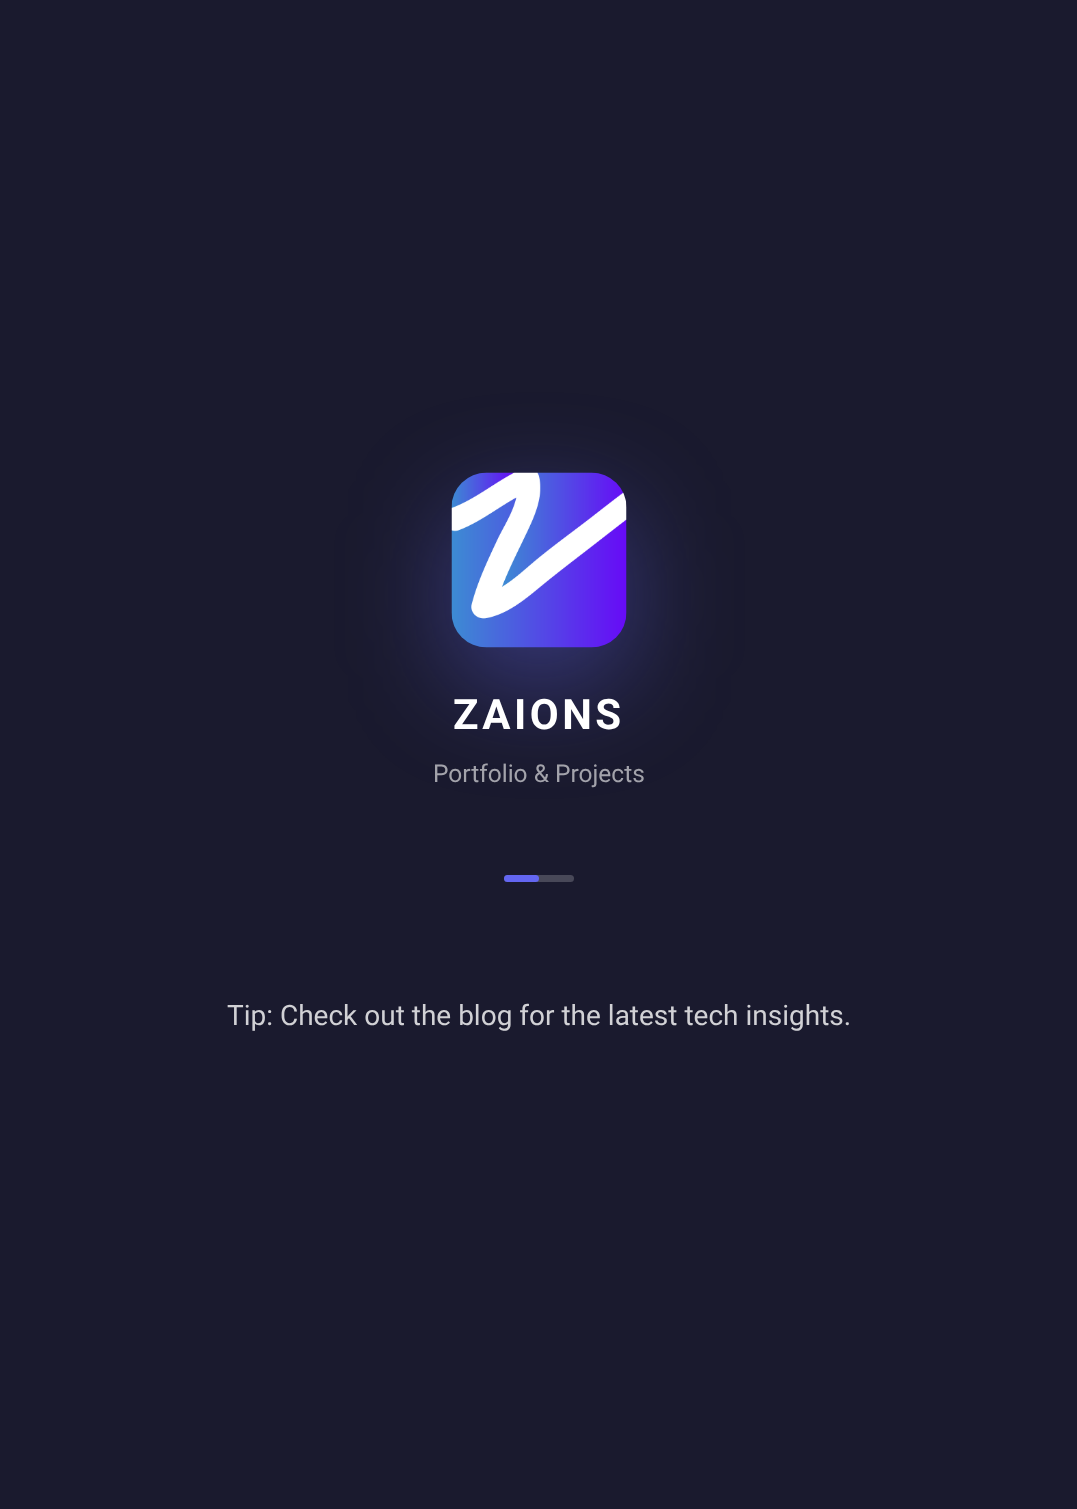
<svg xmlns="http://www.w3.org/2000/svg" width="1077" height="1509">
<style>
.a{font:bold 42px Roboto;letter-spacing:3.5px;fill:#fff}
.b{font:24.5px Roboto;fill:#a3a3ab}
.c{font:28px Roboto;fill:#d1d1d5}
</style>
<rect width="100%" height="100%" fill="#1a1a2e"/>
<rect fill="#6366f166" filter="blur(52.5px)" x="452" y="508" width="175" height="175" rx="35"/>
<image href="1.png" x="451" y="472" width="176" height="176"/>
<rect fill="#484858" x="504" y="875" width="70" height="7" rx="3.5"/>
<rect fill="#6366f1" x="504" y="875" width="35" height="7" rx="3.5"/>
<text class="a" x="453" y="729">ZAIONS</text>
<text class="b" x="433" y="782">Portfolio &amp; Projects</text>
<text class="c" x="227" y="1025">Tip: Check out the blog for the latest tech insights.</text>
</svg>
